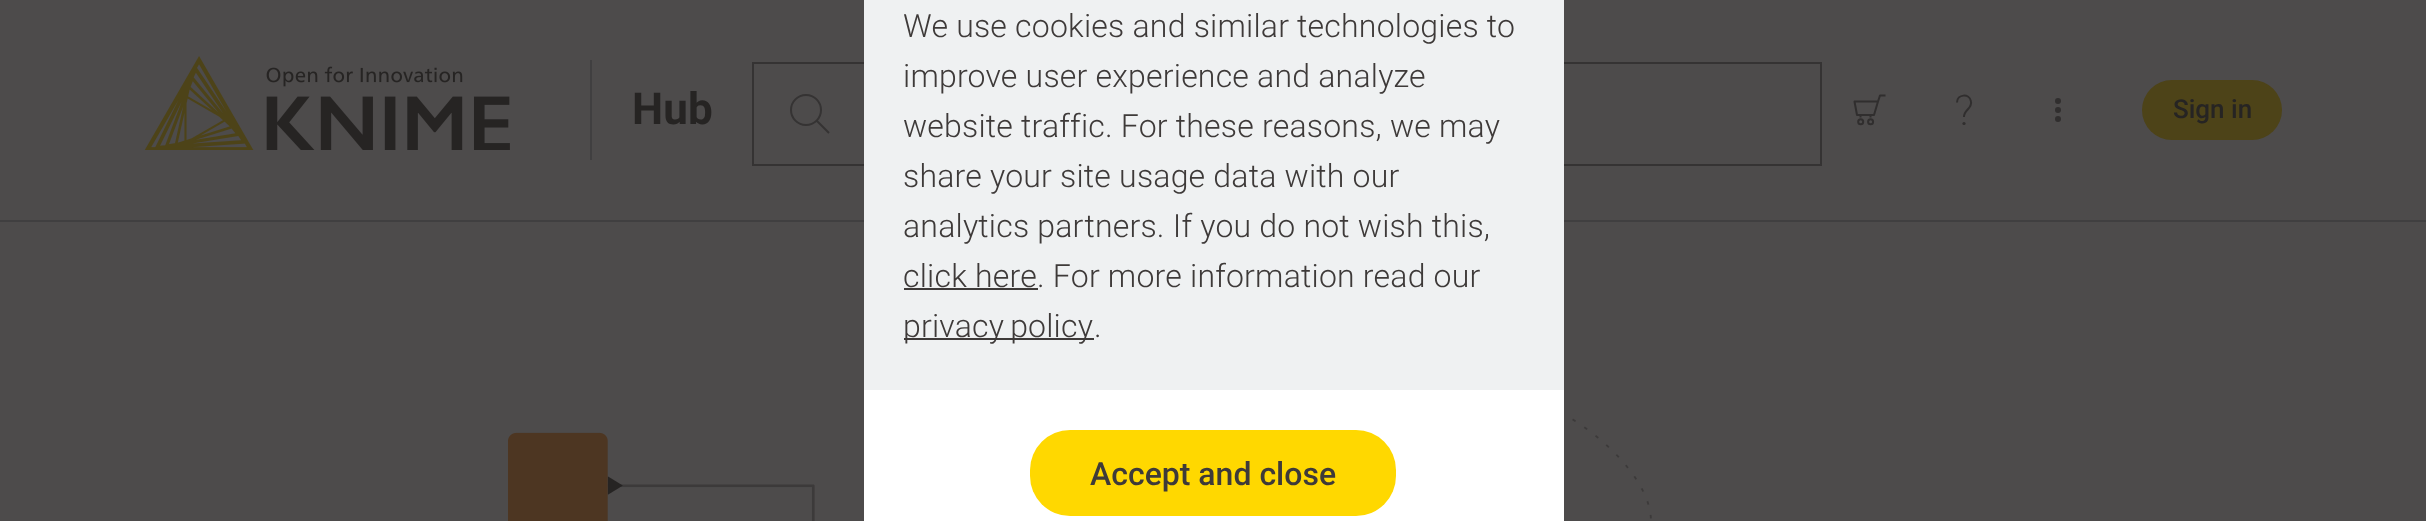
<svg xmlns="http://www.w3.org/2000/svg" width="2426" height="521">
<style>
.a{font:300 32px Roboto;letter-spacing:0.2px;fill:#3e3a39}
.b{font:500 32px Roboto;fill:#3e3a39}
.c{font:bold 44px Roboto;letter-spacing:0.2px;fill:#262423}
.d{font:500 26px Roboto;fill:#262423}
</style>
<rect width="100%" height="100%" fill="#4d4b4b"/>
<image href="2.png" x="508" y="418" width="1144" height="103"/>
<path fill="#fff" d="M864 390h700v131H864z"/>
<path fill="#403f40" d="M0 220h2426v2H0z"/>
<path fill="none" stroke="#353333" stroke-width="2" d="M753 63h1068v102H753z"/>
<path fill="#eff1f2" d="M864 0h700v390H864z"/>
<path fill="#3e3a39" d="M904 288h134v2H904z"/>
<path fill="#3e3a39" d="M904 338h190v2H904z"/>
<rect fill="#ffd800" x="1030" y="430" width="366" height="86" rx="40"/>
<image href="1.png" x="144" y="56" width="366" height="94"/>
<path fill="#403f40" d="M590 60h2v100H590z"/>
<circle fill="none" stroke="#353333" stroke-width="2" cx="806" cy="110" r="15"/>
<path fill="none" stroke="#353333" stroke-width="2" stroke-linejoin="round" d="M816.5 120.5l12.5 12.5"/>
<path fill="none" stroke="#302e2e" stroke-width="2" stroke-linejoin="round" d="M1874 115h-17l-2.5-13.5h23.5zm4-13.5l2-6h5.5m-25 19.5v2.5m10-2.5v2.5"/>
<circle fill="none" stroke="#302e2e" stroke-width="2" cx="1860.7" cy="121.8" r="2.5"/>
<circle fill="none" stroke="#302e2e" stroke-width="2" cx="1870.6" cy="121.8" r="2.5"/>
<path fill="none" stroke="#302e2e" stroke-width="2" stroke-linejoin="round" d="M1964 117c-.5-7 8.5-8.5 7-15.5c-1.5-8.5-14-7.5-14 1"/>
<path fill="none" stroke="#302e2e" stroke-width="3.2" stroke-linecap="round" stroke-linejoin="round" d="M1964 123.5h0"/>
<path fill="none" stroke="#302e2e" stroke-width="6" stroke-linecap="round" d="M2058 101h0m0 9h0m0 9h0"/>
<rect fill="#4d4318" x="2142" y="80" width="140" height="60" rx="30"/>
<text class="a" x="903" y="37">We use cookies and similar technologies to</text>
<text class="a" x="903" y="87">improve user experience and analyze</text>
<text class="a" x="903" y="137">website traffic. For these reasons, we may</text>
<text class="a" x="903" y="187">share your site usage data with our</text>
<text class="a" x="903" y="237">analytics partners. If you do not wish this,</text>
<text class="a" x="903" y="287">click here. For more information read our</text>
<text class="a" x="903" y="337" word-spacing="-2">privacy policy</text>
<text class="a" x="1094" y="337">.</text>
<text class="b" x="1090" y="485">Accept and close</text>
<text class="c" x="632" y="124">Hub</text>
<text class="d" x="2173" y="118">Sign in</text>
</svg>
